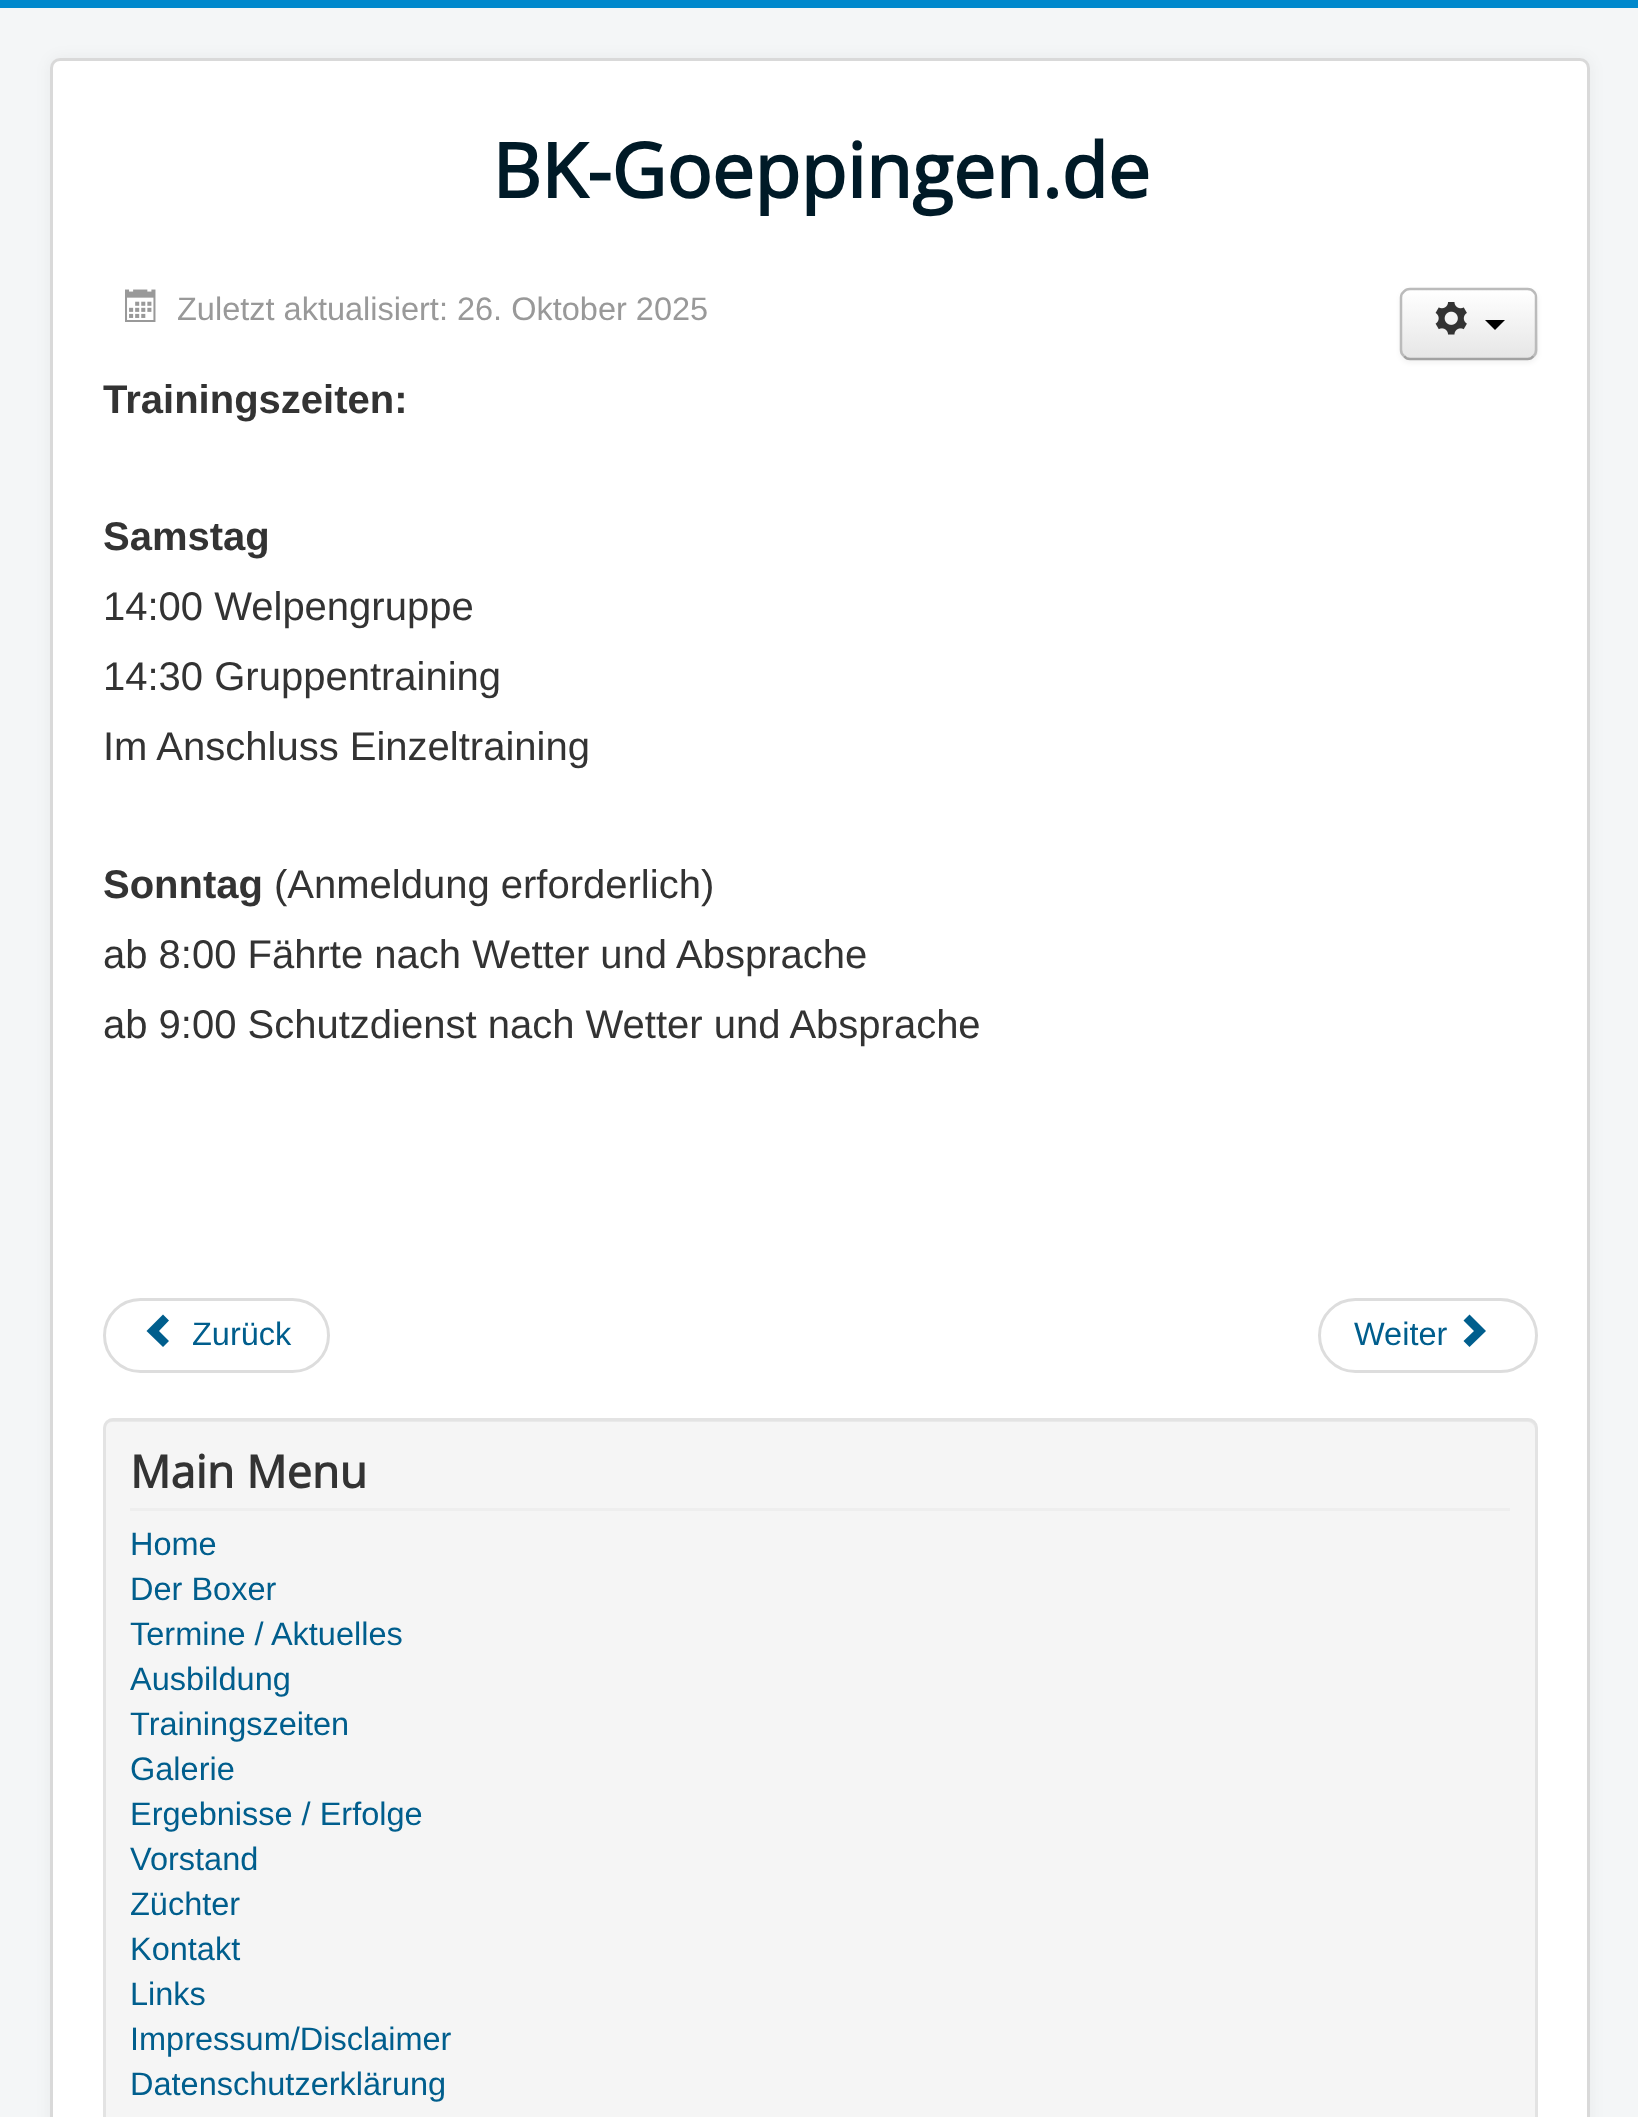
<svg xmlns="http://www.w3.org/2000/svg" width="1638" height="2117">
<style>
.a{font:bold 75.5px Open Sans;fill:#001a27}
.b{font:32.5px Liberation Sans;fill:#999}
.c{font:bold 40px Liberation Sans;fill:#333}
.d{font:40px Liberation Sans;fill:#333}
.e{font:32.5px Liberation Sans;fill:#005e8d}
.f{font:bold 45px Open Sans;fill:#333}
</style>
<defs>
<clipPath id="clip1"><rect x="1400" y="288" width="138" height="72" rx="10"/></clipPath>
<linearGradient id="g1" gradientUnits="userSpaceOnUse" x1="1469" y1="290" x2="1469" y2="358"><stop offset="0" stop-color="#fff"/><stop offset="1" stop-color="#e6e6e6"/></linearGradient>
</defs>
<rect width="100%" height="100%" fill="#f4f6f7"/>
<path fill="#08c" d="M0 0h1638v8H0z"/>
<rect fill="#0000000d" filter="blur(7.5px)" x="50" y="58" width="1540" height="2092" rx="10"/>
<rect fill="#fff" x="50" y="58" width="1540" height="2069" rx="10"/>
<rect fill="none" stroke="#00000026" stroke-width="3" x="51.5" y="59.5" width="1537" height="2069" rx="8.5"/>
<image href="1.png" x="125" y="289" width="31" height="33"/>
<rect fill="#0000000d" filter="blur(2.5px)" x="1400" y="290" width="138" height="73" rx="10"/>
<g clip-path="url(#clip1)">
<path fill="url(#g1)" d="M1400 290h138v68H1400z"/>
</g>
<path fill="none" stroke="#a2a2a2" stroke-width="2.5" d="M1533.5 356c-1.5 2-3.5 3-6 3h-117.5c-2.5 0-4.5-1-6-3"/>
<path fill="none" stroke="#bbb" stroke-width="2.5" d="M1404 356c-2-1.5-3-3.5-3-6v-52.5c0-2.5 1-4.5 3-6c1.5-2 3.5-2.5 6-2.5h117.5c2.5 0 4.5 .5 6 2.5c2 1.5 2.5 3.5 2.5 6v52.5c0 2.5-.5 4.5-2.5 6"/>
<image href="2.png" x="1435" y="302" width="32" height="33"/>
<path fill="#000" d="M1485 320h20l-10 10z"/>
<rect fill="none" stroke="#ddd" stroke-width="3" x="104.5" y="1299.5" width="224" height="72" rx="36"/>
<path fill="#005e8d" d="M163 1347l-16.5-16l16.5-16.5l6 6l-10 10.5l10 10z"/>
<rect fill="none" stroke="#ddd" stroke-width="3" x="1319.5" y="1299.5" width="217" height="72" rx="36"/>
<path fill="#005e8d" d="M1469.5 1314.5l16.5 16.5l-16.5 16l-6-6l10.5-10l-10.5-10.5z"/>
<rect fill="#f5f5f5" x="103" y="1418" width="1435" height="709" rx="10"/>
<path fill="#e9e9e9" d="M112 1422h1416c4 0 7 4 7 8v-2c0-4-4-8-8-8h-1414c-4 0-8 4-8 8v2c0-4 3-8 7-8z"/>
<rect fill="none" stroke="#e3e3e3" stroke-width="3" x="104.5" y="1419.5" width="1432" height="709" rx="8.5"/>
<path fill="#eee" d="M130 1508h1380v3H130z"/>
<text class="a" x="492" y="198">BK-Goeppingen.de</text>
<text class="b" x="177" y="320">Zuletzt aktualisiert: 26. Oktober 2025</text>
<text class="c" x="103" y="413">Trainingszeiten:</text>
<text class="c" x="103" y="550">Samstag</text>
<text class="d" x="103" y="620">14:00 Welpengruppe</text>
<text class="d" x="103" y="690">14:30 Gruppentraining</text>
<text class="d" x="103" y="760">Im Anschluss Einzeltraining</text>
<text class="c" x="103" y="898">Sonntag</text>
<text class="d" x="274" y="898">(Anmeldung erforderlich)</text>
<text class="d" x="103" y="968">ab 8:00 Fährte nach Wetter und Absprache</text>
<text class="d" x="103" y="1038">ab 9:00 Schutzdienst nach Wetter und Absprache</text>
<text class="e" x="192" y="1345">Zurück</text>
<text class="e" x="1354" y="1345">Weiter</text>
<text class="f" x="130" y="1488">Main Menu</text>
<text class="e" x="130" y="1555">Home</text>
<text class="e" x="130" y="1600">Der Boxer</text>
<text class="e" x="130" y="1645">Termine / Aktuelles</text>
<text class="e" x="130" y="1690">Ausbildung</text>
<text class="e" x="130" y="1735">Trainingszeiten</text>
<text class="e" x="130" y="1780">Galerie</text>
<text class="e" x="130" y="1825">Ergebnisse / Erfolge</text>
<text class="e" x="130" y="1870">Vorstand</text>
<text class="e" x="130" y="1915">Züchter</text>
<text class="e" x="130" y="1960">Kontakt</text>
<text class="e" x="130" y="2005">Links</text>
<text class="e" x="130" y="2050">Impressum/Disclaimer</text>
<text class="e" x="130" y="2095">Datenschutzerklärung</text>
</svg>
